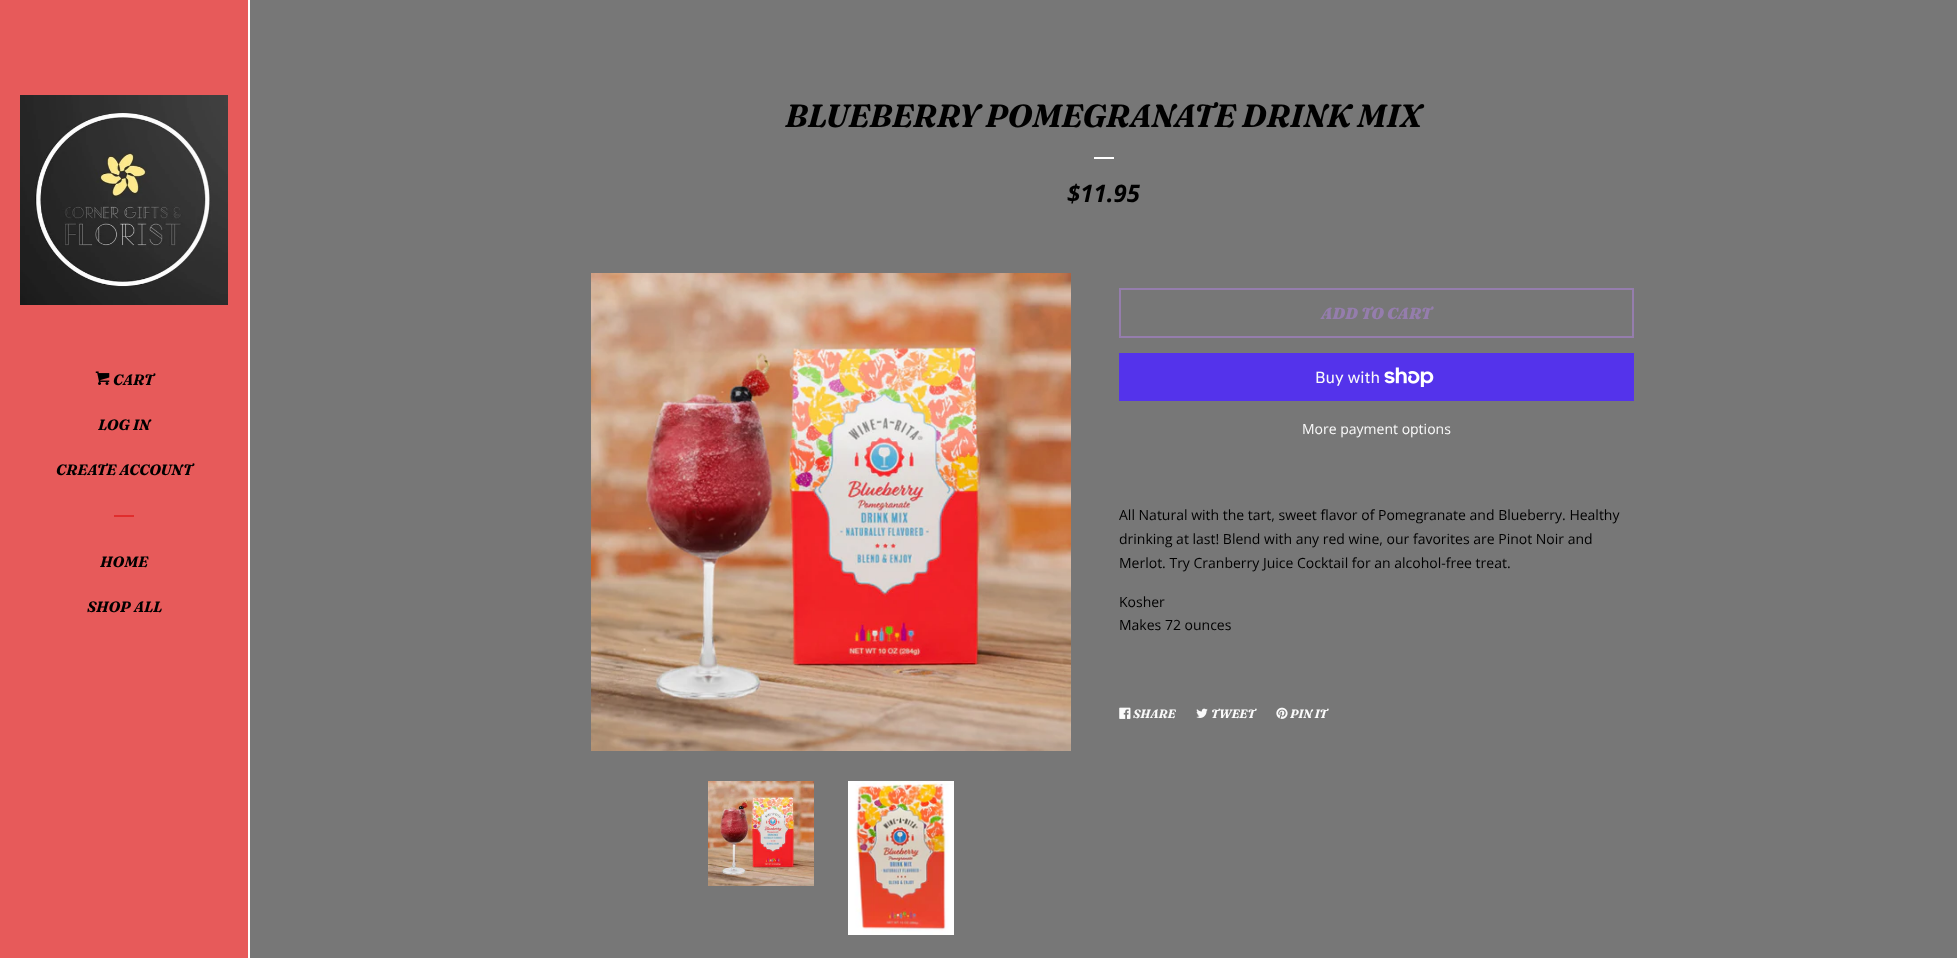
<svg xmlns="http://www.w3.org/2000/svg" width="1957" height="958">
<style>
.a{font:italic bold 15px Fraunces;fill:#000}
.b{font:italic bold 32px 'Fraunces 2';fill:#000}
.c{font:italic bold 24px Open Sans;fill:#000}
.d{font:italic 900 16px Fraunces;fill:#957dad}
.e{font:16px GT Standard;fill:#fafafa}
.f{font:14px Open Sans;fill:#fafafa}
.g{font:14px Open Sans;fill:#000}
.h{font:italic bold 12px Fraunces;fill:#fafafa}
</style>
<rect width="100%" height="100%" fill="#e75a5a"/>
<path fill="#fff" d="M248 0h2v958H248z"/>
<image href="1.png" x="20" y="95" width="208" height="210"/>
<image href="2.png" x="95" y="371" width="15" height="14"/>
<path fill="#e12d2d" d="M114 515h20v2H114z"/>
<path fill="#777" d="M250 0h1707v958H250z"/>
<path fill="#fff" d="M1094 157h20v2H1094z"/>
<image href="3.png" x="591" y="273" width="480" height="478"/>
<image href="4.png" x="708" y="781" width="106" height="105"/>
<image href="5.png" x="848" y="781" width="106" height="154"/>
<path fill="none" stroke="#957dad" stroke-width="2" d="M1120 289h513v48H1120z"/>
<path fill="#5433eb" d="M1119 353h515v48H1119z"/>
<image href="6.png" x="1384" y="367" width="50" height="20"/>
<image href="7.png" x="1119" y="707" width="12" height="12"/>
<image href="8.png" x="1196" y="708" width="12" height="10"/>
<image href="9.png" x="1276" y="707" width="12" height="12"/>
<text class="a" x="113" y="385">CART</text>
<text class="a" x="98" y="430">LOG IN</text>
<text class="a" x="56" y="475">CREATE ACCOUNT</text>
<text class="a" x="100" y="567">HOME</text>
<text class="a" x="87" y="612">SHOP ALL</text>
<text class="b" x="785" y="127">BLUEBERRY POMEGRANATE DRINK MIX</text>
<text class="c" x="1067" y="202">$11.95</text>
<text class="d" x="1321" y="319">ADD TO CART</text>
<text class="e" x="1315" y="383">Buy with</text>
<text class="f" x="1302" y="434">More payment options</text>
<text class="g" x="1119" y="520">All Natural with the tart, sweet flavor of Pomegranate and Blueberry. Healthy</text>
<text class="g" x="1119" y="544">drinking at last! Blend with any red wine, our favorites are Pinot Noir and</text>
<text class="g" x="1119" y="568">Merlot. Try Cranberry Juice Cocktail for an alcohol-free treat.</text>
<text class="g" x="1119" y="607">Kosher</text>
<text class="g" x="1119" y="630">Makes 72 ounces</text>
<text class="h" x="1133" y="718">SHARE</text>
<text class="h" x="1211" y="718">TWEET</text>
<text class="h" x="1290" y="718">PIN IT</text>
</svg>
